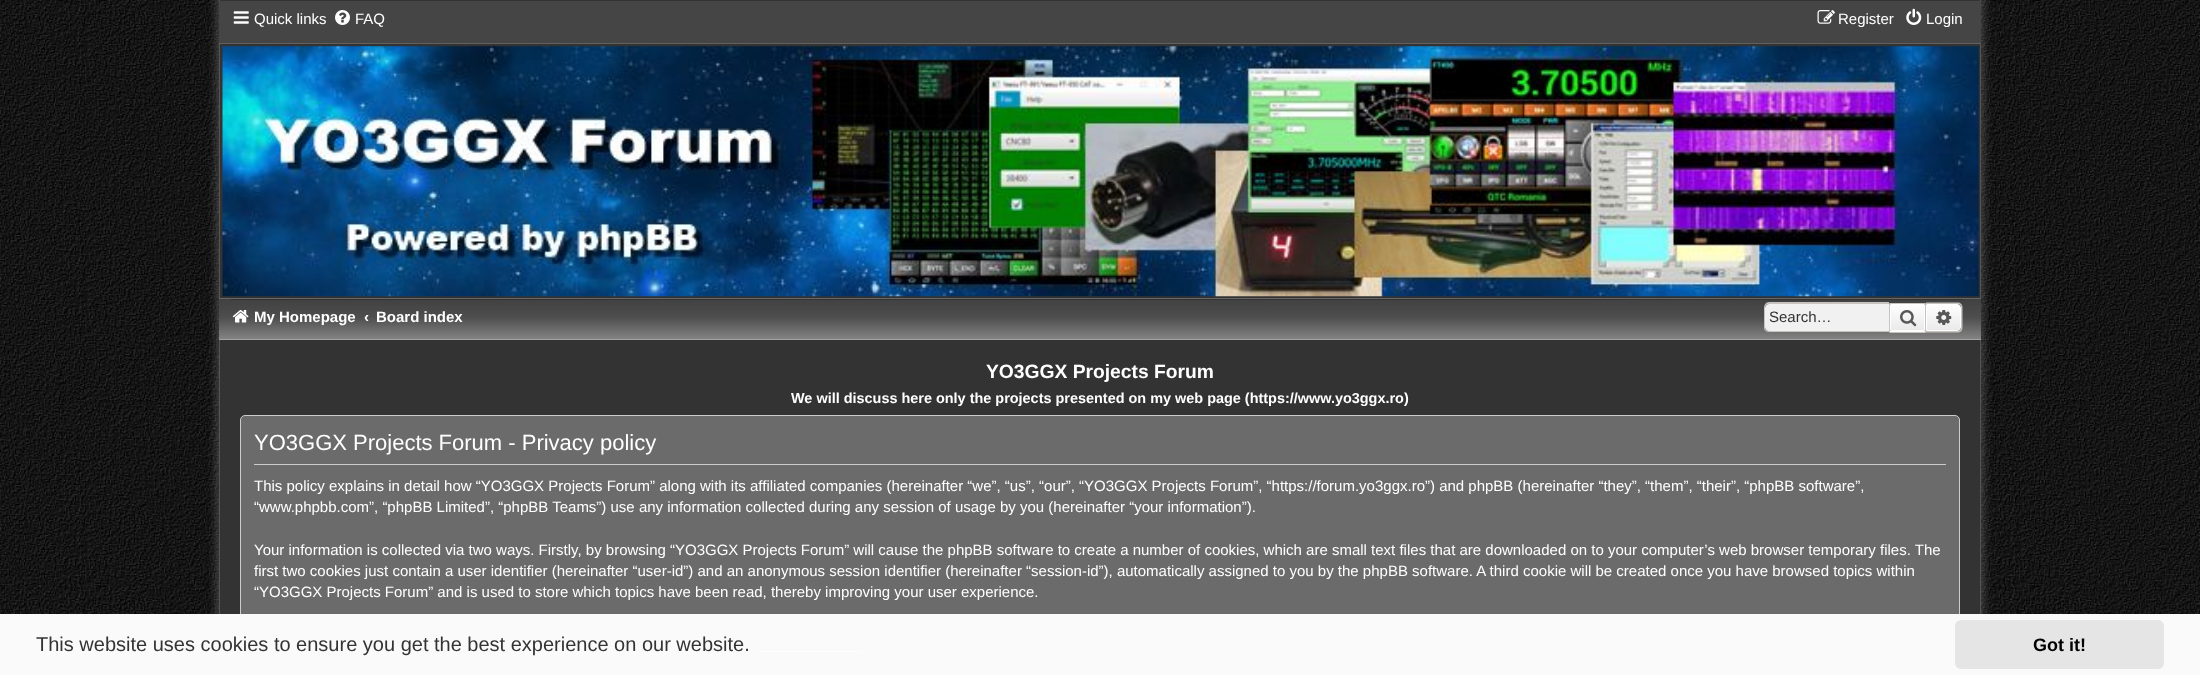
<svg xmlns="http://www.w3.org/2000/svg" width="2200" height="675">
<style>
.a{font:15px Liberation Sans;fill:#fff}
.b{font:bold 15px Liberation Sans;fill:#fff}
.c{font:15px Liberation Sans;fill:#333}
.d{font:bold 19.25px Liberation Sans;fill:#fff}
.e{font:bold 14.45px Liberation Sans;fill:#fff}
.f{font:22px Liberation Sans;fill:#fff}
.g{font:20px Liberation Sans;fill:#333}
.h{font:bold 18px Liberation Sans;fill:#000}
</style>
<defs>
<linearGradient id="g1" gradientUnits="userSpaceOnUse" x1="1100" y1="299" x2="1100" y2="361"><stop offset="0" stop-color="#414141"/><stop offset="0.3" stop-color="#4e4e4e"/><stop offset="0.67" stop-color="#878787"/><stop offset="1" stop-color="#fafafa"/></linearGradient>
<linearGradient id="g2" gradientUnits="userSpaceOnUse" x1="1908" y1="304" x2="1908" y2="331"><stop offset="0" stop-color="#fff"/><stop offset="1" stop-color="#e9e9e9"/></linearGradient>
<linearGradient id="g3" gradientUnits="userSpaceOnUse" x1="1944" y1="304" x2="1944" y2="331"><stop offset="0" stop-color="#fff"/><stop offset="1" stop-color="#e9e9e9"/></linearGradient>
</defs>
<rect width="100%" height="100%" fill="#fff"/>
<image href="1.png" x="0" y="0" width="2200" height="614"/>
<rect fill="#ffffff33" filter="blur(4px)" x="216" y="-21" width="1768" height="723" rx="15"/>
<path fill="#333" d="M220 0h1760v614H220z"/>
<path fill="none" stroke="#535453" d="M219.5 -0.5h1761v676H219.5z"/>
<path fill="#454545" d="M219 1h1762v42H219z"/>
<image href="2.png" x="233" y="11" width="16" height="13"/>
<image href="3.png" x="335" y="10" width="15" height="15"/>
<image href="4.png" x="1817" y="10" width="18" height="14"/>
<image href="5.png" x="1906" y="8" width="16" height="17"/>
<path fill="#616161" d="M219 43h1762v1H219z"/>
<image href="6.png" x="222" y="46" width="1757" height="251"/>
<path fill="url(#g1)" d="M219 299h1762v40H219z"/>
<path fill="#666766" d="M219 298h1762v1H219z"/>
<path fill="#a1a2a1" d="M219 339h1762v1H219z"/>
<path fill="#333" d="M231 299h1732v1H231z"/>
<image href="7.png" x="232" y="310" width="17" height="13"/>
<path fill="#f1f1f1" d="M1769 304h120v27h-120c-2 0-4-2-4-4v-19c0-2 2-4 4-4z"/>
<path fill="#c7c3bf" fill-rule="evenodd" d="M1769 302h120v30h-120c-3 0-5-2-5-4v-20c0-3 2-6 5-6zm0 2h120v27h-120c-2 0-4-1-4-3v-20c0-3 2-4 4-4z"/>
<path fill="#fff" d="M1890 331h35v1H1890z"/>
<path fill="url(#g2)" d="M1891 305h33v25H1891z"/>
<path fill="none" stroke="#fff" d="M1890.5 304.5h34v26H1890.5z"/>
<path fill="none" stroke="#c7c3bf" d="M1889.5 303.5h36v29H1889.5z"/>
<image href="8.png" x="1900" y="310" width="17" height="17"/>
<path fill="url(#g3)" stroke="#fff" d="M1926.5 304.5h30.5c2 0 3.5 1.5 3.5 3.5v19c0 2-1.5 3.5-3.5 3.5h-30.5z"/>
<path fill="#c7c3bf" fill-rule="evenodd" d="M1926 302.5h31.5c3 0 5 2 5 5v20c0 3-2 5-5 5h-31.5zm0 1.5h31.5c2 0 3.5 1.5 3.5 3.5v20c0 2-1.5 3.5-3.5 3.5h-31.5z"/>
<image href="9.png" x="1936" y="310" width="16" height="15"/>
<rect fill="#6b6b6b" stroke="#ccc" x="240.5" y="415.5" width="1719" height="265" rx="4.5"/>
<path fill="#ccc" d="M254 464h1692v1H254z"/>
<path fill="#fafafa" d="M0 614h2200v61H0z"/>
<path fill="#fefefe" d="M759 651h102v1H759z"/>
<rect fill="#e5e5e5" x="1955" y="620" width="209" height="49" rx="6"/>
<text class="a" x="254" y="24">Quick links</text>
<text class="a" x="355" y="24">FAQ</text>
<text class="a" x="1838" y="24">Register</text>
<text class="a" x="1926" y="24">Login</text>
<text class="b" x="254" y="322">My Homepage</text>
<text class="b" x="364" y="322">‹</text>
<text class="b" x="376" y="322">Board index</text>
<text class="c" x="1769" y="322">Search…</text>
<text class="d" x="986" y="378">YO3GGX Projects Forum</text>
<text class="e" x="791" y="403">We will discuss here only the projects presented on my web page (https://www.yo3ggx.ro)</text>
<text class="f" x="254" y="450">YO3GGX Projects Forum - Privacy policy</text>
<text class="a" x="254" y="491">This policy explains in detail how “YO3GGX Projects Forum” along with its affiliated companies (hereinafter “we”, “us”, “our”, “YO3GGX Projects Forum”, “https://forum.yo3ggx.ro”) and phpBB (hereinafter “they”, “them”, “their”, “phpBB software”,</text>
<text class="a" x="254" y="512">“www.phpbb.com”, “phpBB Limited”, “phpBB Teams”) use any information collected during any session of usage by you (hereinafter “your information”).</text>
<text class="a" x="254" y="555">Your information is collected via two ways. Firstly, by browsing “YO3GGX Projects Forum” will cause the phpBB software to create a number of cookies, which are small text files that are downloaded on to your computer’s web browser temporary files. The</text>
<text class="a" x="254" y="576">first two cookies just contain a user identifier (hereinafter “user-id”) and an anonymous session identifier (hereinafter “session-id”), automatically assigned to you by the phpBB software. A third cookie will be created once you have browsed topics within</text>
<text class="a" x="254" y="597">“YO3GGX Projects Forum” and is used to store which topics have been read, thereby improving your user experience.</text>
<text class="g" x="36" y="651">This website uses cookies to ensure you get the best experience on our website.</text>
<text class="h" x="2033" y="651">Got it!</text>
</svg>
